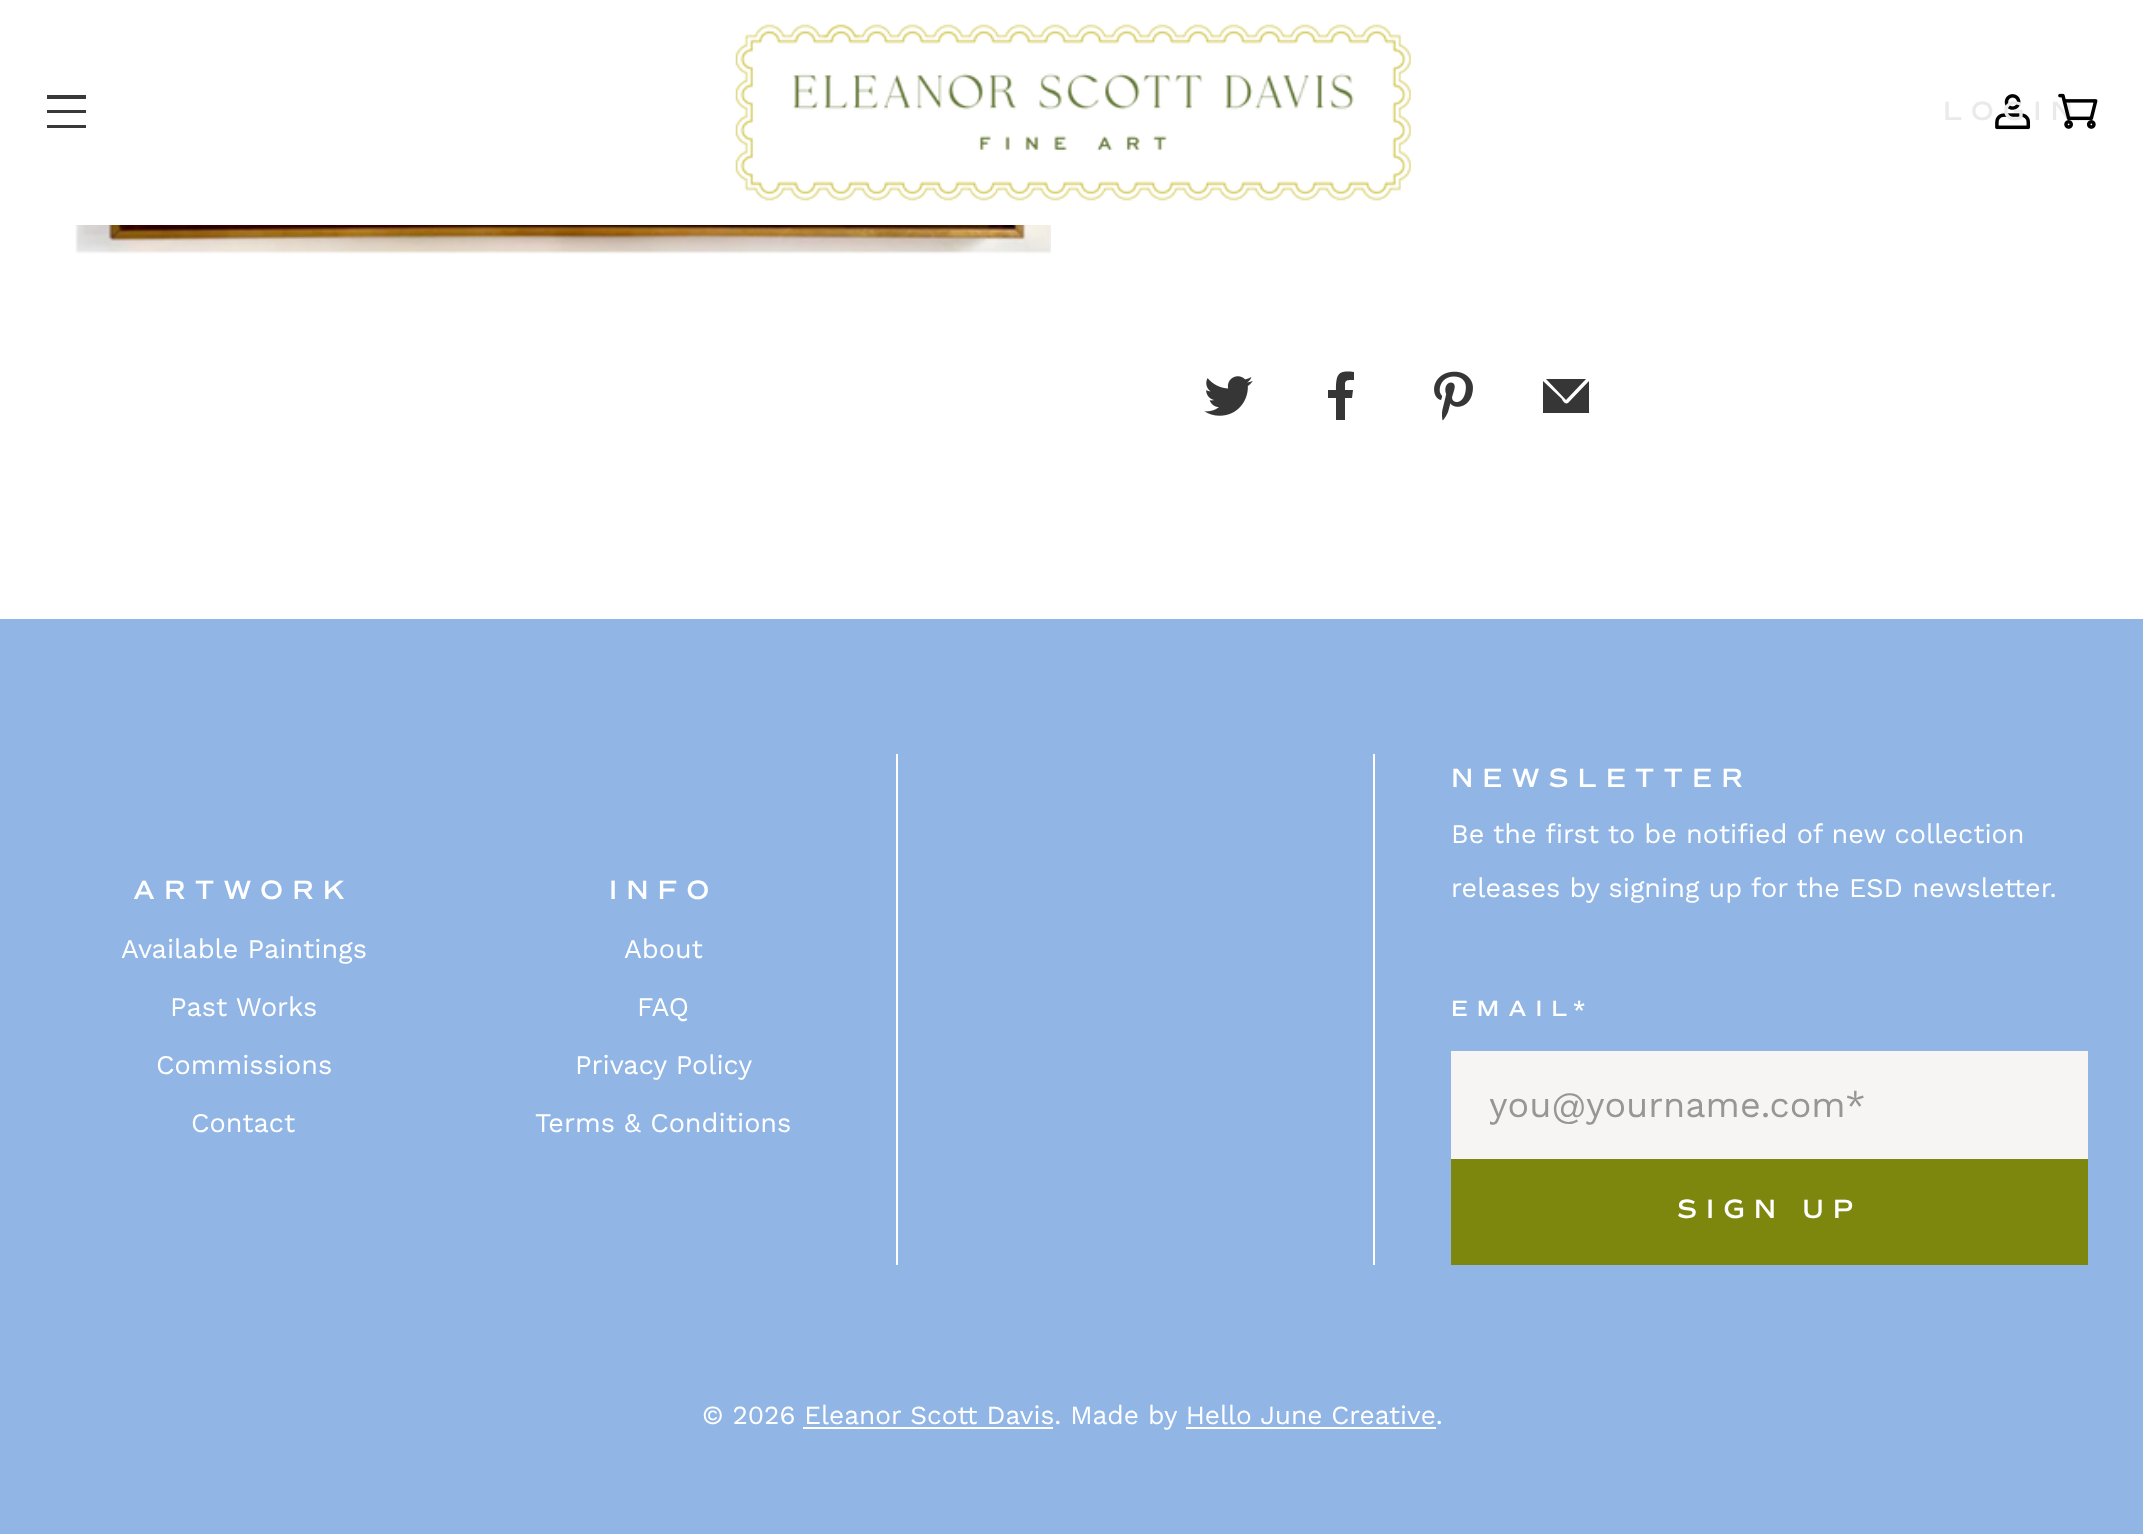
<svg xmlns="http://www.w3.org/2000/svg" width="2143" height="1534">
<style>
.a{font:600 27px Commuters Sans;letter-spacing:9px;fill:#eaeaea}
.b{font:600 27px Commuters Sans;letter-spacing:9px;fill:#fff}
.c{font:27px Work Sans;fill:#fff}
.d{font:600 22.5px Commuters Sans;letter-spacing:9px;fill:#fff}
.e{font:36px Work Sans;fill:#969695}
.f{font:26.25px Work Sans;fill:#fff}
</style>
<defs>
<clipPath id="clip1"><path d="M1490 1082h560v43H1490z"/></clipPath>
</defs>
<rect width="100%" height="100%" fill="#fff"/>
<path fill="#393939" d="M47 95h39v4H47z"/>
<path fill="#393939" d="M47 110h39v3H47z"/>
<path fill="#393939" d="M47 125h39v3H47z"/>
<image href="1.png" x="735" y="24" width="676" height="177"/>
<image href="2.png" x="1995" y="94" width="36" height="36"/>
<image href="4.png" x="75" y="225" width="976" height="29"/>
<image href="5.png" x="1204" y="376" width="49" height="40"/>
<path fill="#363636" d="M1345 384v6h8l-1 8h-7v22h-9v-22h-8v-8h8c0-16 2-20 18-18v8c-4 0-9-1-9 4z"/>
<image href="6.png" x="1434" y="371" width="39" height="50"/>
<path fill="#363636" d="M1568 403c-3 2-6-3-6-4l-19-18v32h46v-32z"/>
<path fill="#363636" d="M1586 379h-40l20 21z"/>
<path fill="#91b6e5" d="M0 619h2143v915H0z"/>
<path fill="#fff" d="M1373 754h2v511H1373z"/>
<path fill="#fff" d="M896 754h2v511H896z"/>
<path fill="#f6f5f3" d="M1451 1051h637v108H1451z"/>
<path fill="#7d870e" d="M1451 1159h637v106H1451z"/>
<path fill="#fff" d="M803 1427h250v2H803z"/>
<path fill="#fff" d="M1186 1427h250v2H1186z"/>
<text class="a" x="1943" y="120">LOGIN</text>
<image href="3.png" x="2058" y="93" width="40" height="36"/>
<text class="b" x="133" y="899">ARTWORK</text>
<text class="c" x="121" y="958">Available Paintings</text>
<text class="c" x="170" y="1016">Past Works</text>
<text class="c" x="156" y="1074">Commissions</text>
<text class="c" x="191" y="1132">Contact</text>
<text class="b" x="609" y="899">INFO</text>
<text class="c" x="624" y="958">About</text>
<text class="c" x="637" y="1016">FAQ</text>
<text class="c" x="575" y="1074">Privacy Policy</text>
<text class="c" x="535" y="1132">Terms &amp; Conditions</text>
<text class="b" x="1451" y="787">NEWSLETTER</text>
<text class="c" x="1451" y="843">Be the first to be notified of new collection</text>
<text class="c" x="1451" y="897">releases by signing up for the ESD newsletter.</text>
<text class="d" x="1451" y="1016">EMAIL</text>
<text class="d" x="1573" y="1016">*</text>
<g clip-path="url(#clip1)">
<text class="e" x="1489" y="1117">you@yourname.com*</text>
</g>
<text class="b" x="1677" y="1218">SIGN UP</text>
<text class="f" x="702" y="1424">© 2026 Eleanor Scott Davis. Made by Hello June Creative.</text>
</svg>
